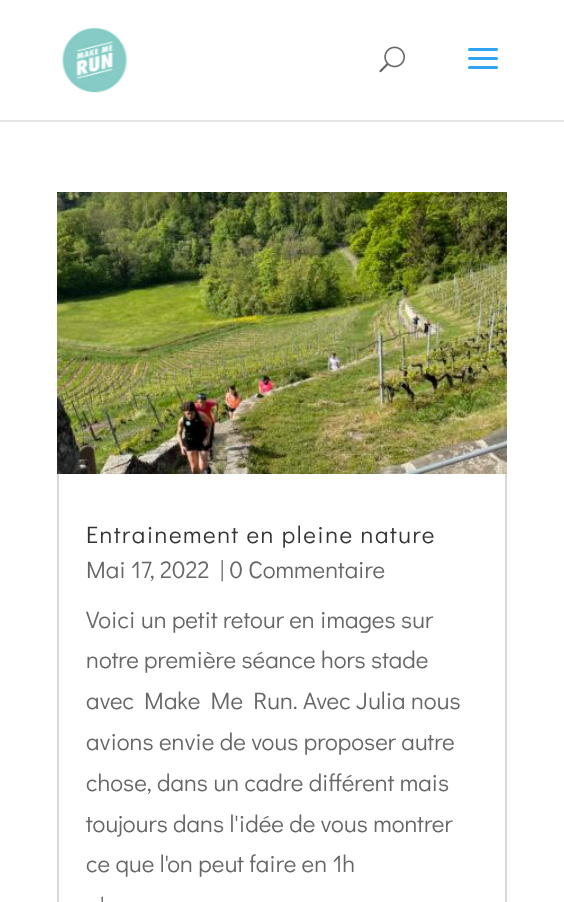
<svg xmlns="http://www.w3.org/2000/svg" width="564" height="902">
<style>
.a{font:24px Didact Gothic;letter-spacing:1.5px;fill:#333}
.b{font:24px Didact Gothic;fill:#666}
</style>
<rect width="100%" height="100%" fill="#fff"/>
<path fill="#e6e6e6" d="M0 120h564v2H0z"/>
<image href="1.png" x="62" y="27" width="66" height="66"/>
<image href="2.png" x="379" y="46" width="26" height="27"/>
<image href="3.png" x="468" y="48" width="30" height="21"/>
<path fill="none" stroke="#d8d8d8" stroke-width="2" d="M58 193h448v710H58z"/>
<image href="4.png" x="57" y="192" width="450" height="282"/>
<text class="a" x="86" y="543">Entrainement en pleine nature</text>
<text class="b" x="86" y="578">Mai 17, 2022</text>
<text class="b" x="220" y="578">| 0 Commentaire</text>
<text class="b" x="86" y="628">Voici un petit retour en images sur</text>
<text class="b" x="86" y="668">notre première séance hors stade</text>
<text class="b" x="86" y="709">avec Make Me Run. Avec Julia nous</text>
<text class="b" x="86" y="750">avions envie de vous proposer autre</text>
<text class="b" x="86" y="791">chose, dans un cadre différent mais</text>
<text class="b" x="86" y="832">toujours dans l'idée de vous montrer</text>
<text class="b" x="86" y="872">ce que l'on peut faire en 1h</text>
<text class="b" x="100" y="913">'</text>
</svg>
